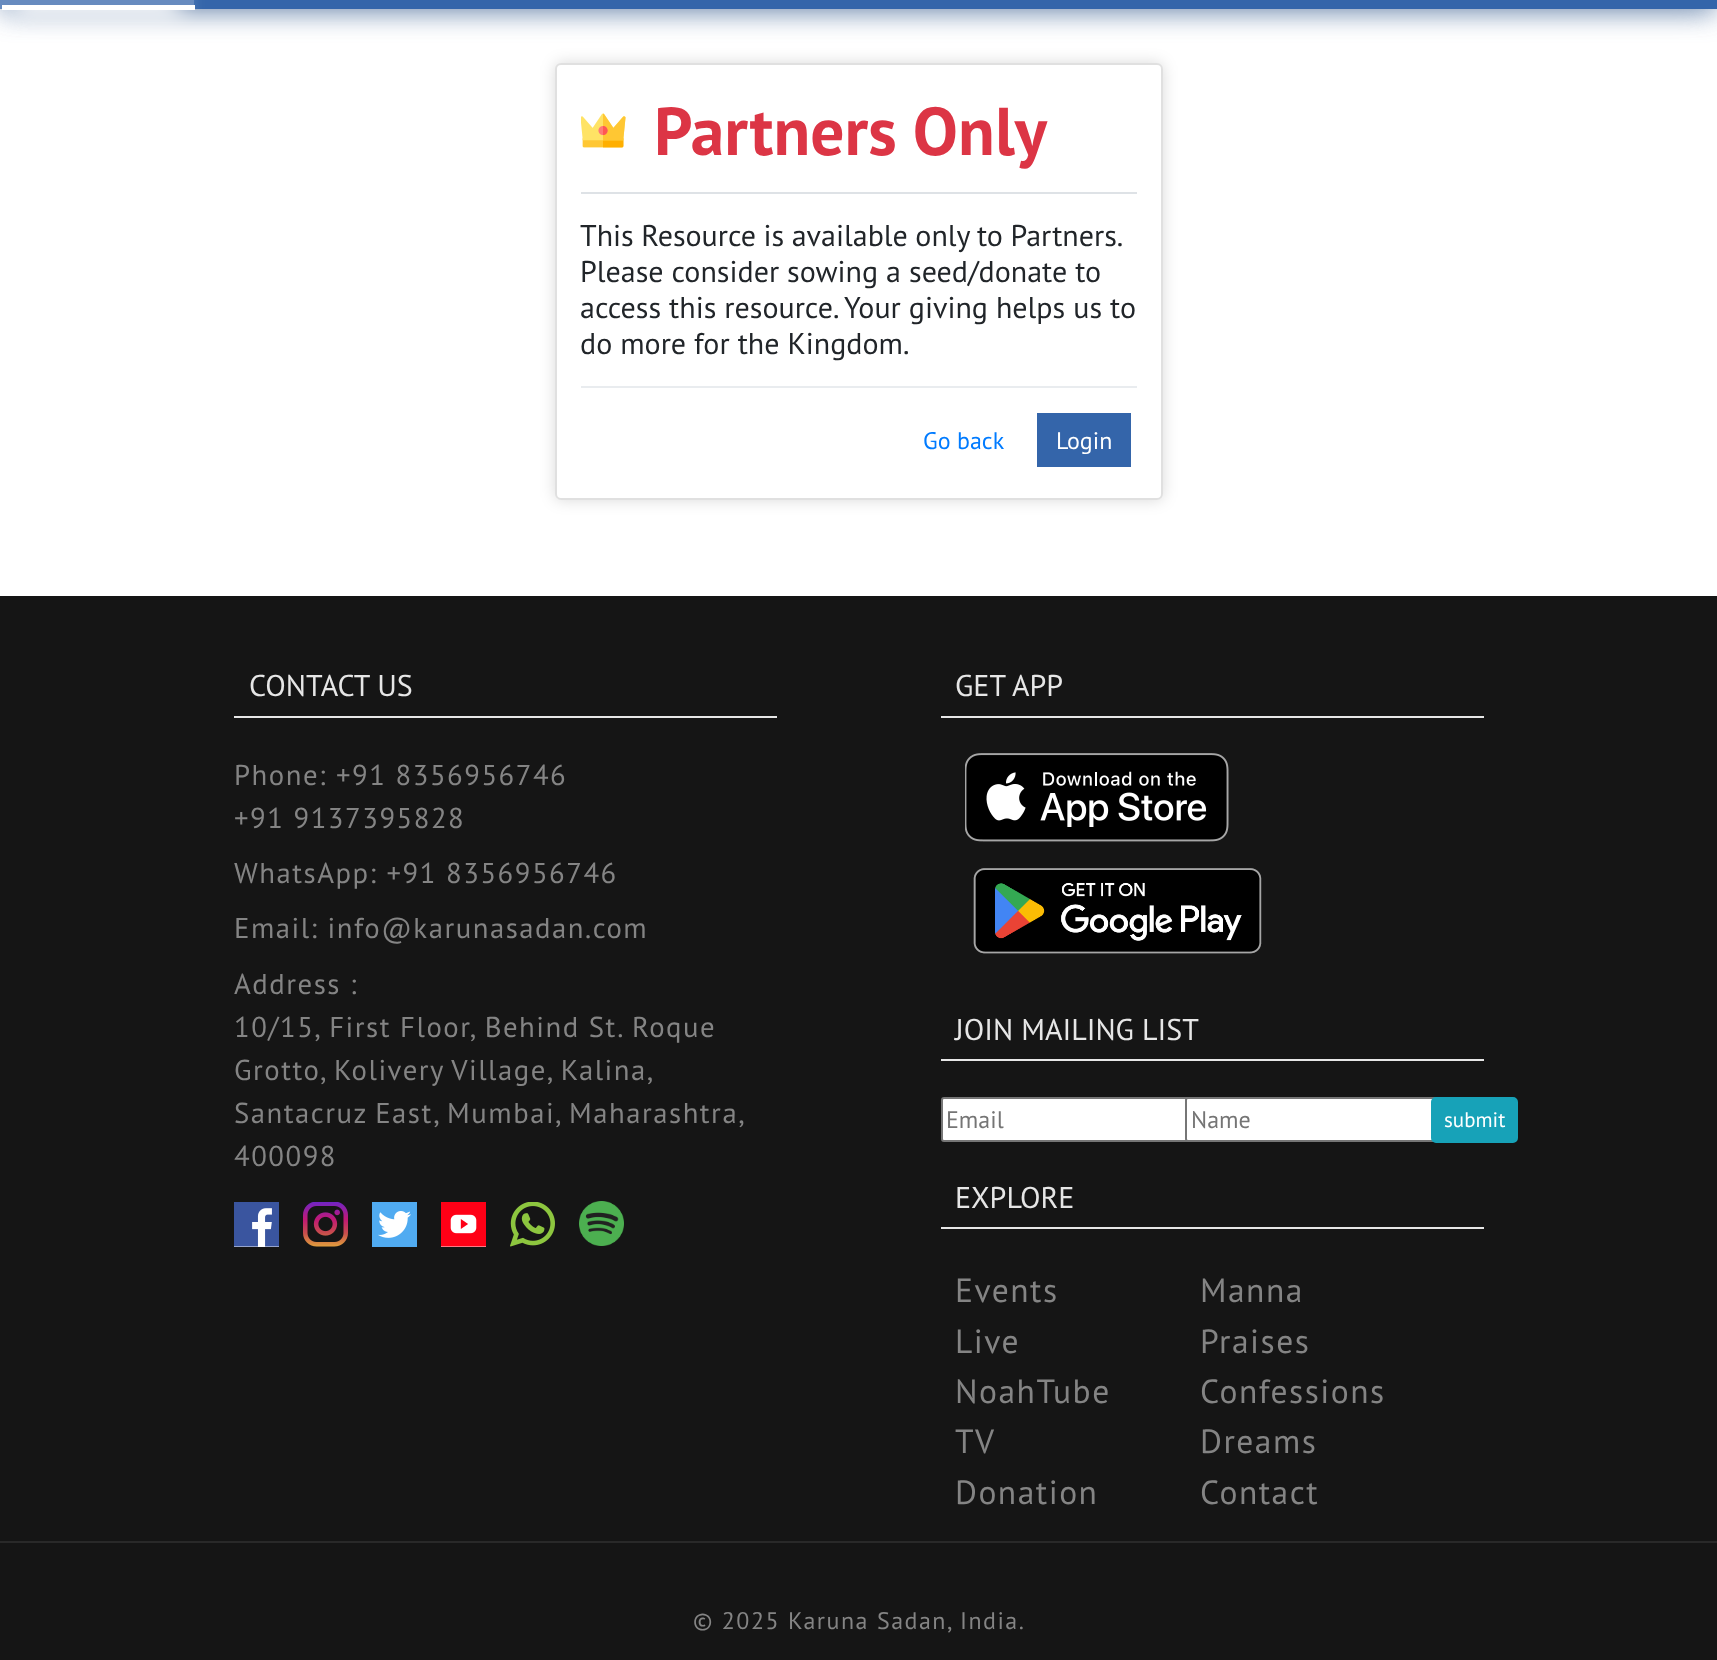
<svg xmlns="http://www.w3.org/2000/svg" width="1717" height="1660">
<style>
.a{font:bold 67.5px PT Sans;fill:#dc3545}
.b{font:30px PT Sans;fill:#212529}
.c{font:24px PT Sans;fill:#007bff}
.d{font:24px PT Sans;fill:#fff}
.e{font:30px PT Sans;fill:#e6e6e6}
.f{font:28.75px PT Sans;letter-spacing:1.5px;fill:#848484}
.g{font:24px PT Sans;fill:#757575}
.h{font:21px PT Sans;fill:#fff}
.i{font:33.5px PT Sans;letter-spacing:1.5px;fill:#848484}
.j{font:24px PT Sans;letter-spacing:1.5px;fill:#848484}
</style>
<defs>
<clipPath id="clip1"><path d="M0 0h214v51h-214zm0-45h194v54h-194z" clip-rule="evenodd"/></clipPath>
</defs>
<rect width="100%" height="100%" fill="#fff"/>
<path fill="#929292" filter="blur(16px)" d="M9 -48h1700v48H9z"/>
<path fill="#3465aa80" filter="blur(13px)" d="M2 -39h1714v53H2z"/>
<path fill="#3465aa" d="M0 0h1717v9H0z"/>
<g clip-path="url(#clip1)">
<path fill="#fff" filter="blur(11px)" d="M14 -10h166v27H14z"/>
</g>
<path fill="#ffffff40" d="M0 0h194v9H0z"/>
<path fill="#fff" d="M2 5h193v5H2z"/>
<rect fill="#00000026" filter="blur(7.5px)" x="555" y="63" width="608" height="437" rx="6"/>
<rect fill="#fff" x="555" y="63" width="608" height="437" rx="6"/>
<rect fill="none" stroke="#0000001f" stroke-width="2" x="556" y="64" width="606" height="435" rx="5"/>
<path fill="#dee2e6" d="M581 192h556v2H581z"/>
<image href="1.png" x="581" y="113" width="45" height="35"/>
<path fill="#e9ecef" d="M581 386h556v2H581z"/>
<path fill="#3465aa" d="M1037 413h94v54H1037z"/>
<path fill="#151515" d="M0 596h1717v1064H0z"/>
<path fill="#e6e6e6" d="M234 716h543v2H234z"/>
<path fill="#fff" d="M234 1208h45v39H234z"/>
<image href="2.png" x="234" y="1202" width="45" height="45"/>
<image href="3.png" x="303" y="1202" width="45" height="45"/>
<image href="4.png" x="372" y="1202" width="45" height="45"/>
<path fill="#fff" d="M441 1214h45v33H441z"/>
<image href="5.png" x="441" y="1202" width="45" height="45"/>
<image href="6.png" x="510" y="1202" width="45" height="45"/>
<image href="7.png" x="579" y="1201" width="45" height="45"/>
<path fill="#e6e6e6" d="M941 716h543v2H941z"/>
<image href="8.png" x="965" y="753" width="264" height="89"/>
<image href="9.png" x="973" y="868" width="289" height="86"/>
<path fill="#e6e6e6" d="M941 1059h543v2H941z"/>
<rect fill="#fff" stroke="#767676" stroke-width="2" x="942" y="1098" width="286" height="43" rx="2"/>
<rect fill="#fff" stroke="#767676" stroke-width="2" x="1186" y="1098" width="286" height="43" rx="2"/>
<rect fill="#17a2b8" stroke="#17a2b8" stroke-width="2" x="1432" y="1098" width="85" height="44" rx="4"/>
<path fill="#e6e6e6" d="M941 1227h543v2H941z"/>
<path fill="#292929" d="M0 1541h1717v2H0z"/>
<text class="a" x="654" y="155">Partners Only</text>
<text class="b" x="580" y="246" word-spacing="-0.5">This Resource is available only to Partners.</text>
<text class="b" x="580" y="282">Please consider sowing a seed/donate to</text>
<text class="b" x="580" y="318">access this resource. Your giving helps us to</text>
<text class="b" x="580" y="354">do more for the Kingdom.</text>
<text class="c" x="923" y="449">Go back</text>
<text class="d" x="1056" y="449">Login</text>
<text class="e" x="249" y="696">CONTACT US</text>
<text class="f" x="234" y="785">Phone: +91 8356956746</text>
<text class="f" x="234" y="828">+91 9137395828</text>
<text class="f" x="234" y="883">WhatsApp: +91 8356956746</text>
<text class="f" x="234" y="938">Email: info@karunasadan.com</text>
<text class="f" x="234" y="994">Address :</text>
<text class="f" x="234" y="1037">10/15, First Floor, Behind St. Roque</text>
<text class="f" x="234" y="1080" word-spacing="-1">Grotto, Kolivery Village, Kalina,</text>
<text class="f" x="234" y="1123" word-spacing="-1">Santacruz East, Mumbai, Maharashtra,</text>
<text class="f" x="234" y="1166">400098</text>
<text class="e" x="955" y="696">GET APP</text>
<text class="e" x="955" y="1040">JOIN MAILING LIST</text>
<text class="g" x="946" y="1128">Email</text>
<text class="g" x="1191" y="1128">Name</text>
<text class="h" x="1444" y="1127">submit</text>
<text class="e" x="955" y="1208">EXPLORE</text>
<text class="i" x="955" y="1302">Events</text>
<text class="i" x="955" y="1353">Live</text>
<text class="i" x="955" y="1403">NoahTube</text>
<text class="i" x="955" y="1453">TV</text>
<text class="i" x="955" y="1504">Donation</text>
<text class="i" x="1200" y="1302">Manna</text>
<text class="i" x="1200" y="1353">Praises</text>
<text class="i" x="1200" y="1403">Confessions</text>
<text class="i" x="1200" y="1453">Dreams</text>
<text class="i" x="1200" y="1504">Contact</text>
<text class="j" x="693" y="1629">© 2025 Karuna Sadan, India.</text>
</svg>
